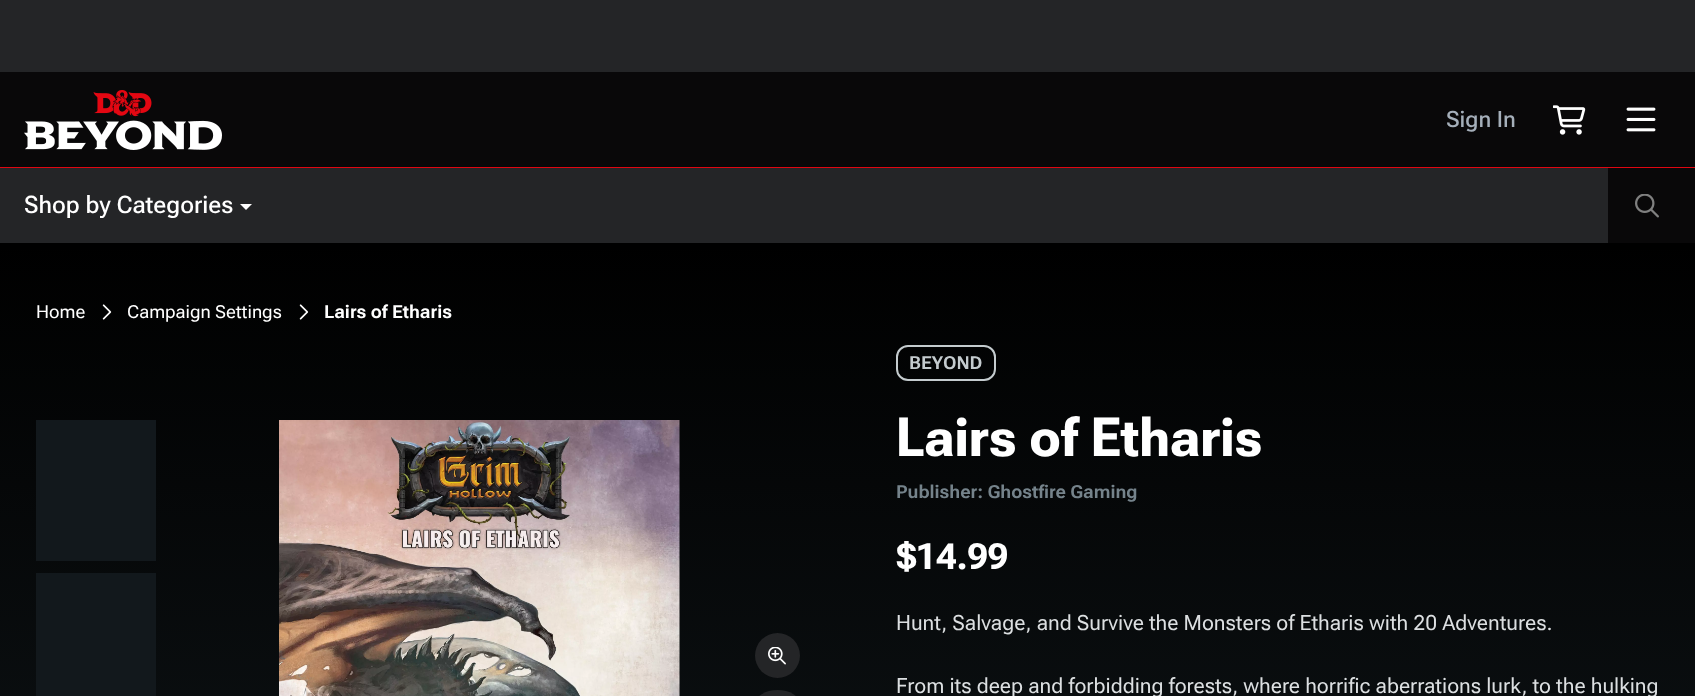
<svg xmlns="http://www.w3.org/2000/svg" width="1695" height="696">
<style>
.a{font:500 22.5px 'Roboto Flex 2';fill:#a5afba}
.b{font:500 24px Roboto Flex;fill:#fff}
.c{font:18px 'Roboto Flex 2';fill:#fff}
.d{font:bold 18px 'Roboto Flex 2';fill:#fff}
.e{font:bold 18px 'Roboto Flex 2';fill:#c4cbce}
.f{font:bold 54px Roboto Flex;fill:#fff}
.g{font:bold 18px 'Roboto Flex 2';fill:#75838b}
.h{font:bold 36px 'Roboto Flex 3';fill:#fff}
.i{font:21px Roboto Flex;fill:#dcdfe1}
</style>
<defs>
<linearGradient id="g1" gradientUnits="userSpaceOnUse" x1="848" y1="243" x2="848" y2="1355"><stop offset="0" stop-color="#000"/><stop offset="0.68" stop-color="#101619"/><stop offset="1" stop-color="#12181c"/></linearGradient>
</defs>
<rect width="100%" height="100%" fill="#fff"/>
<path fill="#242527" d="M0 0h1695v72H0z"/>
<path fill="#090809" d="M0 72h1695v95H0z"/>
<path fill="#e40712" d="M0 167h1695v1H0z"/>
<image href="1.png" x="24" y="90" width="198" height="60"/>
<image href="2.png" x="1553" y="105" width="33" height="30"/>
<image href="3.png" x="1626" y="107" width="30" height="25"/>
<path fill="url(#g1)" d="M0 243h1695v453H0z"/>
<path fill="#0000001a" filter="blur(2px)" d="M0 170h1695v75H0z"/>
<path fill="#242527" d="M0 168h1608v75H0z"/>
<path fill="#fff" d="M240 204h12l-6 6z"/>
<path fill="#090809" d="M1608 168h87v75H1608z"/>
<image href="4.png" x="1635" y="194" width="24" height="24"/>
<image href="5.png" x="102" y="304" width="10" height="16"/>
<image href="6.png" x="299" y="304" width="10" height="16"/>
<path fill="#12181c" d="M36 420h120v141H36z"/>
<path fill="#12181c" d="M36 573h120v123H36z"/>
<image href="7.png" x="279" y="420" width="401" height="276"/>
<circle fill="#242527" cx="777.5" cy="655.5" r="22.5"/>
<image href="8.png" x="768" y="647" width="18" height="18"/>
<rect fill="#242527" x="755" y="690" width="45" height="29" rx="22.5"/>
<rect fill="none" stroke="#c4cbce" stroke-width="2" x="897" y="346" width="98" height="34" rx="11"/>
<text class="a" x="1446" y="127">Sign In</text>
<text class="b" x="24" y="213">Shop by Categories</text>
<text class="c" x="36" y="318">Home</text>
<text class="c" x="127" y="318">Campaign Settings</text>
<text class="d" x="324" y="318">Lairs of Etharis</text>
<text class="e" x="909" y="369">BEYOND</text>
<text class="f" x="896" y="456">Lairs of Etharis</text>
<text class="g" x="896" y="498">Publisher: Ghostfire Gaming</text>
<text class="h" x="896" y="569">$14.99</text>
<text class="i" x="896" y="630">Hunt, Salvage, and Survive the Monsters of Etharis with 20 Adventures.</text>
<text class="i" x="896" y="693">From its deep and forbidding forests, where horrific aberrations lurk, to the hulking</text>
</svg>
